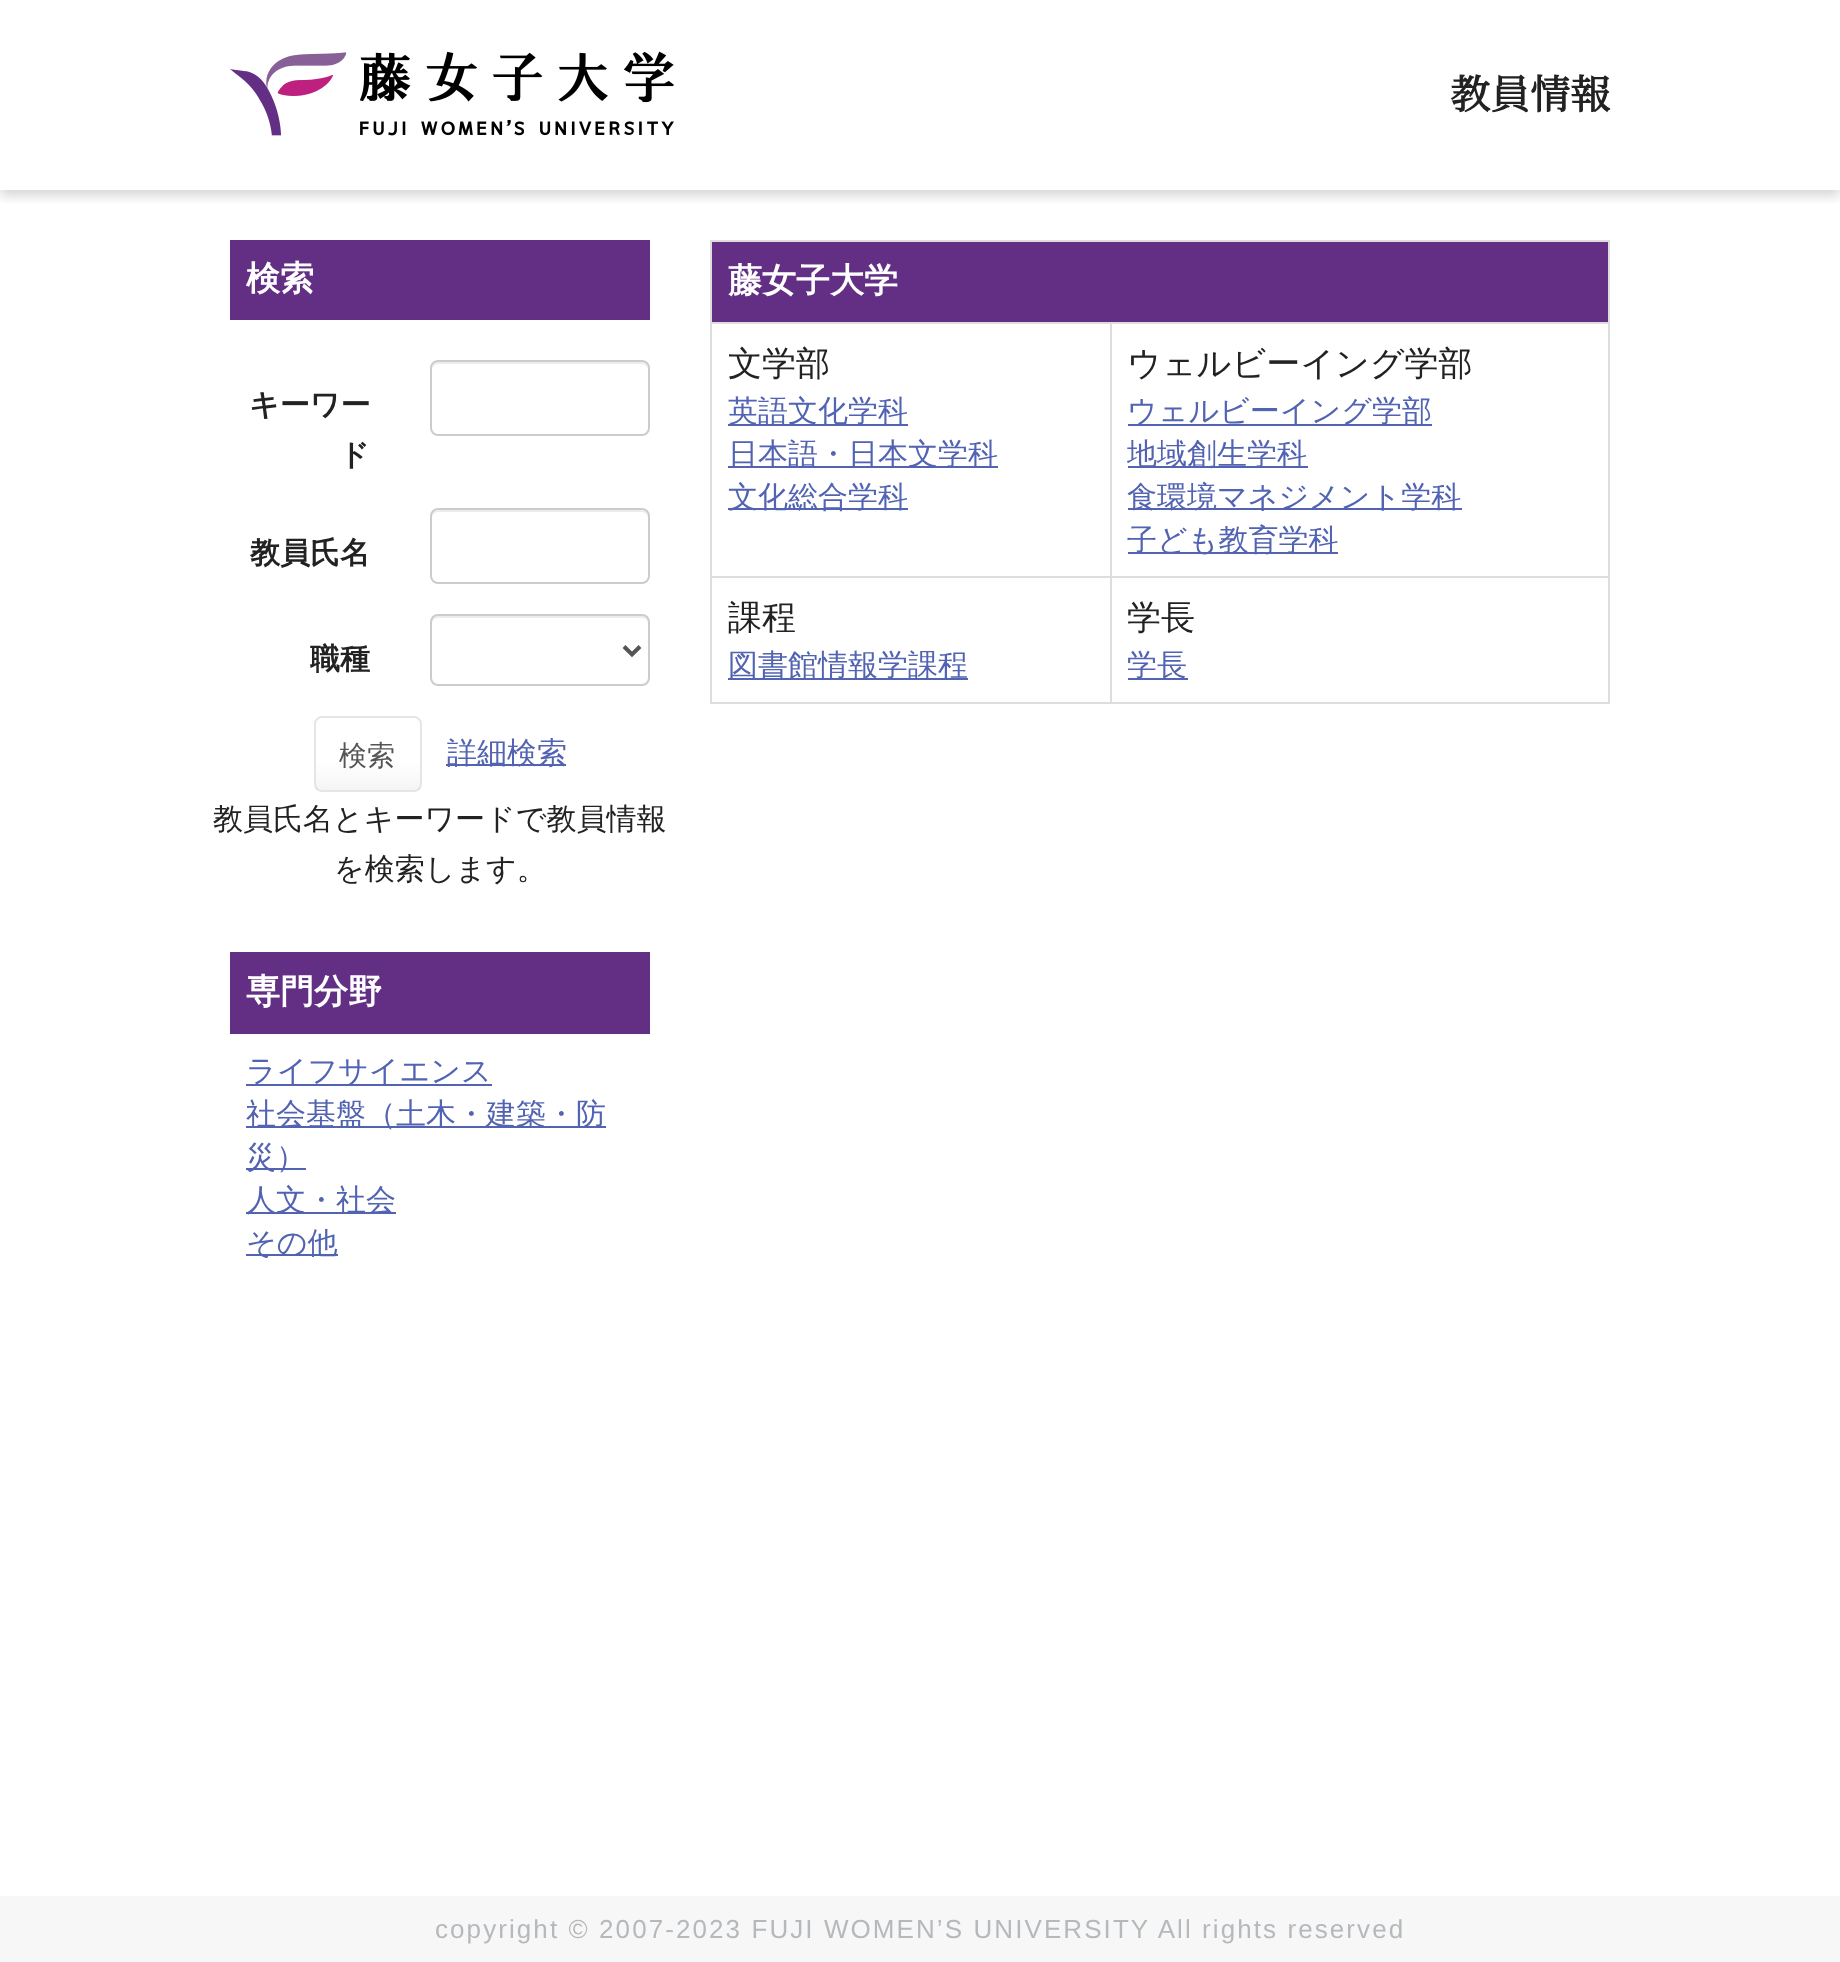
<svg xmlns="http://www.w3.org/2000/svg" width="1840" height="1962">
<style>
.a{font:bold 40px Noto Serif JP;fill:#222}
.b{font:bold 34px WenQuanYi Zen Hei;fill:#fff}
.c{font:bold 30px WenQuanYi Zen Hei;fill:#222}
.d{font:500 28px WenQuanYi Zen Hei;fill:#555}
.e{font:500 30px WenQuanYi Zen Hei;fill:#5163b2}
.f{font:500 30px WenQuanYi Zen Hei;fill:#222}
.g{font:500 34px WenQuanYi Zen Hei;fill:#222}
.h{font:26px Liberation Sans;letter-spacing:2.08px;fill:#b5b9bc}
</style>
<defs>
<clipPath id="clip1"><path d="M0 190h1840v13H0z"/></clipPath>
<clipPath id="clip2"><rect x="314" y="716" width="108" height="76" rx="8"/></clipPath>
<linearGradient id="g1" gradientUnits="userSpaceOnUse" x1="368" y1="718" x2="368" y2="790"><stop offset="0" stop-color="#fff"/><stop offset="0.6" stop-color="#fff"/><stop offset="1" stop-color="#f5f5f5"/></linearGradient>
</defs>
<rect width="100%" height="100%" fill="#fff"/>
<g clip-path="url(#clip1)">
<path fill="#00000029" filter="blur(6px)" d="M0 6h1840v190H0z"/>
</g>
<image href="1.png" x="230" y="51" width="444" height="85"/>
<path fill="#622f85" d="M230 240h420v80H230z"/>
<path fill="#ececec" d="M438 364h204c3 0 6 3 6 6v-2c0-3-3-6-6-6h-204c-3 0-6 3-6 6v2c0-3 3-6 6-6z"/>
<rect fill="none" stroke="#ccc" stroke-width="2" x="431" y="361" width="218" height="74" rx="7"/>
<path fill="#ececec" d="M438 512h204c3 0 6 3 6 6v-2c0-3-3-6-6-6h-204c-3 0-6 3-6 6v2c0-3 3-6 6-6z"/>
<rect fill="none" stroke="#ccc" stroke-width="2" x="431" y="509" width="218" height="74" rx="7"/>
<path fill="#ececec" d="M438 618h204c3 0 6 3 6 6v-2c0-3-3-6-6-6h-204c-3 0-6 3-6 6v2c0-3 3-6 6-6z"/>
<rect fill="none" stroke="#ccc" stroke-width="2" x="431" y="615" width="218" height="70" rx="7"/>
<path fill="none" stroke="#555" stroke-width="4" d="M624 646.5l8 8l8-8"/>
<g clip-path="url(#clip2)">
<path fill="url(#g1)" d="M316 718h104v72H316z"/>
</g>
<path fill="none" stroke="#e6e6e6" stroke-width="2" d="M419 789c-1.5 1.5-3 2-5 2h-92c-2 0-3.5-.5-5-2"/>
<path fill="none" stroke="#0000001a" stroke-width="2" d="M317 789c-1.5-1.5-2-3-2-5v-60c0-2 .5-3.5 2-5c1.5-1.5 3-2 5-2h92c2 0 3.5 .5 5 2c1.5 1.5 2 3 2 5v60c0 2-.5 3.5-2 5"/>
<path fill="#5163b2" d="M446 764h120v2H446z"/>
<path fill="#622f85" d="M230 952h420v82H230z"/>
<path fill="#5163b2" d="M246 1084h246v2H246z"/>
<path fill="#5163b2" d="M246 1126h360v2H246z"/>
<path fill="#5163b2" d="M246 1168h60v2H246z"/>
<path fill="#5163b2" d="M246 1212h150v2H246z"/>
<path fill="#5163b2" d="M246 1254h92v2H246z"/>
<path fill="#ddd" d="M710 240h900v2H710z"/>
<path fill="#ddd" d="M1608 240h2v464H1608z"/>
<path fill="#ddd" d="M710 702h900v2H710z"/>
<path fill="#ddd" d="M710 240h2v464H710z"/>
<path fill="#622f85" d="M712 242h896v80H712z"/>
<path fill="#ddd" d="M1110 322h500v2H1110z"/>
<path fill="#ddd" d="M1110 576h500v2H1110z"/>
<path fill="#ddd" d="M1110 576h2v128H1110z"/>
<path fill="#ddd" d="M710 576h402v2H710z"/>
<path fill="#ddd" d="M1110 322h2v256H1110z"/>
<path fill="#ddd" d="M710 322h402v2H710z"/>
<path fill="#5163b2" d="M728 424h180v2H728z"/>
<path fill="#5163b2" d="M728 466h270v2H728z"/>
<path fill="#5163b2" d="M728 508h180v2H728z"/>
<path fill="#5163b2" d="M1128 424h304v2H1128z"/>
<path fill="#5163b2" d="M1128 466h180v2H1128z"/>
<path fill="#5163b2" d="M1128 508h334v2H1128z"/>
<path fill="#5163b2" d="M1128 552h210v2H1128z"/>
<path fill="#5163b2" d="M728 678h240v2H728z"/>
<path fill="#5163b2" d="M1128 678h60v2H1128z"/>
<path fill="#f7f7f7" d="M0 1896h1840v66H0z"/>
<text class="a" x="1450" y="109">教員情報</text>
<text class="b" x="246" y="290">検索</text>
<text class="c" x="249" y="415">キーワー</text>
<text class="c" x="339" y="465">ド</text>
<text class="c" x="250" y="563">教員氏名</text>
<text class="c" x="310" y="669">職種</text>
<text class="d" x="339" y="765">検索</text>
<text class="e" x="447" y="763">詳細検索</text>
<text class="f" x="213" y="829">教員氏名とキーワードで教員情報</text>
<text class="f" x="334" y="879">を検索します。</text>
<text class="b" x="246" y="1003">専門分野</text>
<text class="e" x="246" y="1081">ライフサイエンス</text>
<text class="e" x="246" y="1124">社会基盤（土木・建築・防</text>
<text class="e" x="246" y="1167">災）</text>
<text class="e" x="246" y="1210">人文・社会</text>
<text class="e" x="246" y="1253">その他</text>
<text class="b" x="728" y="292">藤女子大学</text>
<text class="g" x="728" y="375">文学部</text>
<text class="e" x="728" y="421">英語文化学科</text>
<text class="e" x="728" y="464">日本語・日本文学科</text>
<text class="e" x="728" y="507">文化総合学科</text>
<text class="g" x="1127" y="375">ウェルビーイング学部</text>
<text class="e" x="1127" y="421">ウェルビーイング学部</text>
<text class="e" x="1127" y="464">地域創生学科</text>
<text class="e" x="1127" y="507">食環境マネジメント学科</text>
<text class="e" x="1127" y="550">子ども教育学科</text>
<text class="g" x="728" y="629">課程</text>
<text class="e" x="728" y="675">図書館情報学課程</text>
<text class="g" x="1127" y="629">学長</text>
<text class="e" x="1127" y="675">学長</text>
<text class="h" x="435" y="1938">copyright © 2007-2023 FUJI WOMEN’S UNIVERSITY All rights reserved</text>
</svg>
